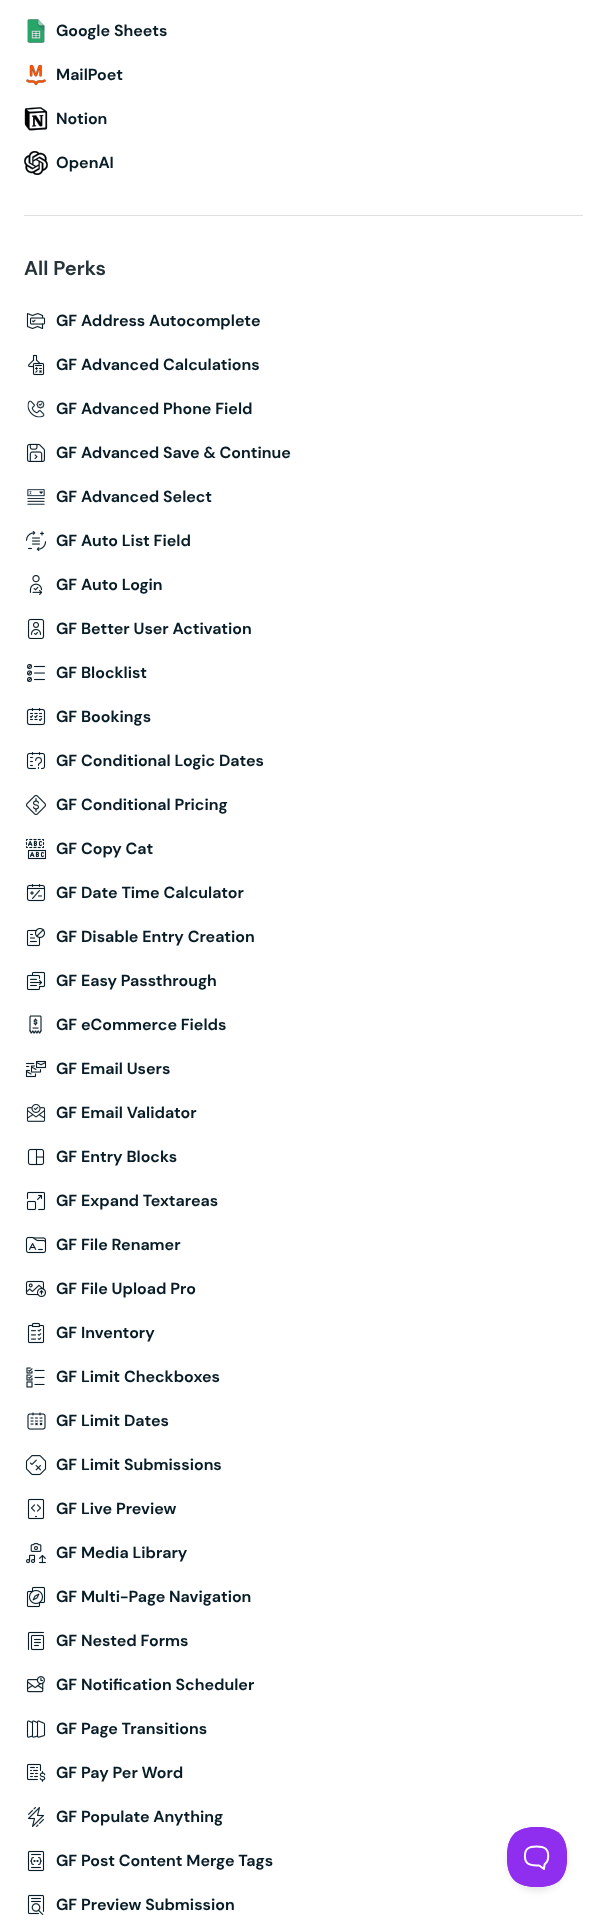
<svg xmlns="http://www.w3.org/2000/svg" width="607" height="1927">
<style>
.a{font:bold 16px DM Sans;fill:#071c26}
.b{font:bold 20px DM Sans;fill:#263339}
</style>
<rect width="100%" height="100%" fill="#fff"/>
<image href="1.png" x="27" y="19" width="18" height="24"/>
<image href="2.png" x="26" y="64" width="20" height="22"/>
<image href="3.png" x="24" y="107" width="24" height="24"/>
<image href="4.png" x="24" y="151" width="24" height="24"/>
<path fill="#e0e0e0" d="M24 215h559v1H24z"/>
<image href="5.png" x="26" y="313" width="20" height="16"/>
<image href="6.png" x="28" y="354" width="17" height="22"/>
<image href="7.png" x="27" y="400" width="18" height="18"/>
<image href="8.png" x="26" y="443" width="19" height="19"/>
<image href="9.png" x="27" y="489" width="18" height="16"/>
<image href="10.png" x="26" y="531" width="21" height="20"/>
<image href="11.png" x="29" y="575" width="14" height="20"/>
<image href="12.png" x="27" y="618" width="18" height="21"/>
<image href="13.png" x="27" y="664" width="18" height="18"/>
<image href="14.png" x="26" y="708" width="20" height="18"/>
<image href="15.png" x="26" y="752" width="20" height="18"/>
<image href="16.png" x="26" y="795" width="20" height="20"/>
<image href="17.png" x="25" y="838" width="22" height="22"/>
<image href="18.png" x="26" y="884" width="20" height="18"/>
<image href="19.png" x="26" y="928" width="19" height="19"/>
<image href="20.png" x="26" y="971" width="20" height="20"/>
<image href="21.png" x="29" y="1015" width="13" height="19"/>
<image href="22.png" x="25" y="1060" width="22" height="18"/>
<image href="23.png" x="26" y="1104" width="20" height="18"/>
<image href="24.png" x="27" y="1148" width="18" height="18"/>
<image href="25.png" x="26" y="1191" width="20" height="20"/>
<image href="26.png" x="25" y="1236" width="22" height="18"/>
<image href="27.png" x="25" y="1280" width="22" height="18"/>
<image href="28.png" x="27" y="1322" width="18" height="22"/>
<image href="29.png" x="26" y="1367" width="19" height="21"/>
<image href="30.png" x="27" y="1412" width="19" height="18"/>
<image href="31.png" x="25" y="1455" width="22" height="21"/>
<image href="32.png" x="27" y="1498" width="18" height="22"/>
<image href="33.png" x="26" y="1543" width="20" height="21"/>
<image href="34.png" x="26" y="1586" width="20" height="22"/>
<image href="35.png" x="27" y="1631" width="18" height="20"/>
<image href="36.png" x="26" y="1676" width="19" height="17"/>
<image href="37.png" x="26" y="1720" width="20" height="18"/>
<image href="38.png" x="26" y="1763" width="20" height="19"/>
<image href="39.png" x="28" y="1807" width="16" height="20"/>
<image href="40.png" x="27" y="1850" width="18" height="22"/>
<image href="41.png" x="27" y="1894" width="18" height="21"/>
<rect fill="#0000001a" filter="blur(3.5px)" x="507" y="1831" width="60" height="60" rx="30"/>
<image href="42.png" x="507" y="1827" width="60" height="60"/>
<text class="a" x="56" y="36">Google Sheets</text>
<text class="a" x="56" y="80">MailPoet</text>
<text class="a" x="56" y="124">Notion</text>
<text class="a" x="56" y="168">OpenAI</text>
<text class="b" x="24" y="275">All Perks</text>
<text class="a" x="56" y="326">GF Address Autocomplete</text>
<text class="a" x="56" y="370">GF Advanced Calculations</text>
<text class="a" x="56" y="414">GF Advanced Phone Field</text>
<text class="a" x="56" y="458">GF Advanced Save &amp; Continue</text>
<text class="a" x="56" y="502">GF Advanced Select</text>
<text class="a" x="56" y="546">GF Auto List Field</text>
<text class="a" x="56" y="590">GF Auto Login</text>
<text class="a" x="56" y="634">GF Better User Activation</text>
<text class="a" x="56" y="678">GF Blocklist</text>
<text class="a" x="56" y="722">GF Bookings</text>
<text class="a" x="56" y="766">GF Conditional Logic Dates</text>
<text class="a" x="56" y="810">GF Conditional Pricing</text>
<text class="a" x="56" y="854">GF Copy Cat</text>
<text class="a" x="56" y="898">GF Date Time Calculator</text>
<text class="a" x="56" y="942">GF Disable Entry Creation</text>
<text class="a" x="56" y="986">GF Easy Passthrough</text>
<text class="a" x="56" y="1030">GF eCommerce Fields</text>
<text class="a" x="56" y="1074">GF Email Users</text>
<text class="a" x="56" y="1118">GF Email Validator</text>
<text class="a" x="56" y="1162">GF Entry Blocks</text>
<text class="a" x="56" y="1206">GF Expand Textareas</text>
<text class="a" x="56" y="1250">GF File Renamer</text>
<text class="a" x="56" y="1294">GF File Upload Pro</text>
<text class="a" x="56" y="1338">GF Inventory</text>
<text class="a" x="56" y="1382">GF Limit Checkboxes</text>
<text class="a" x="56" y="1426">GF Limit Dates</text>
<text class="a" x="56" y="1470">GF Limit Submissions</text>
<text class="a" x="56" y="1514">GF Live Preview</text>
<text class="a" x="56" y="1558">GF Media Library</text>
<text class="a" x="56" y="1602">GF Multi-Page Navigation</text>
<text class="a" x="56" y="1646">GF Nested Forms</text>
<text class="a" x="56" y="1690">GF Notification Scheduler</text>
<text class="a" x="56" y="1734">GF Page Transitions</text>
<text class="a" x="56" y="1778">GF Pay Per Word</text>
<text class="a" x="56" y="1822">GF Populate Anything</text>
<text class="a" x="56" y="1866">GF Post Content Merge Tags</text>
<text class="a" x="56" y="1910">GF Preview Submission</text>
</svg>
